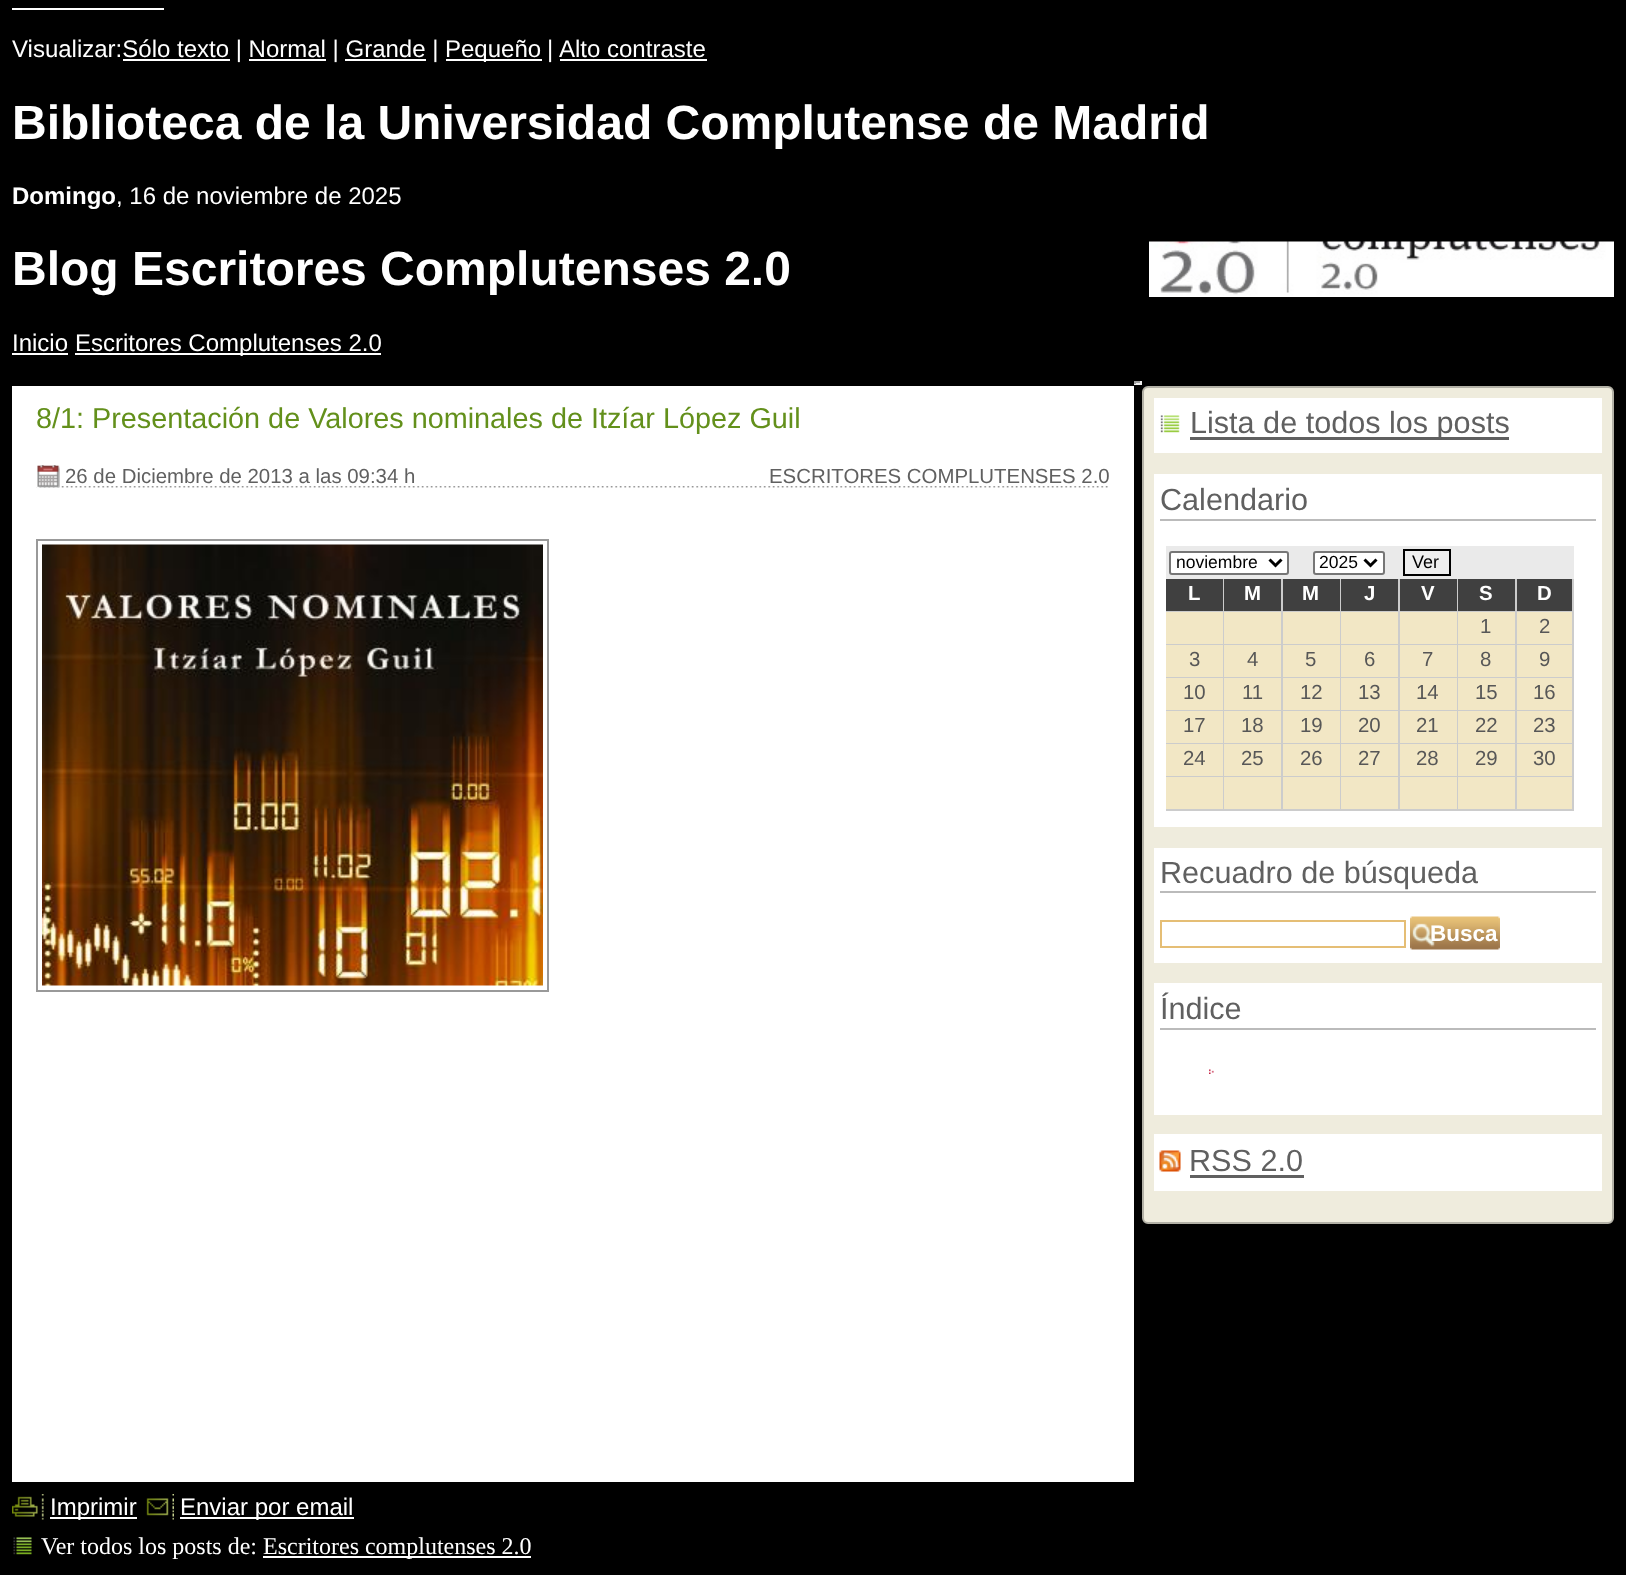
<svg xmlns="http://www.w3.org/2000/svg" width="1626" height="1575">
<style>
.a{font:24px Liberation Sans;fill:#fff}
.b{font:bold 48px Liberation Sans;fill:#fff}
.c{font:bold 24px Liberation Sans;fill:#fff}
.d{font:28.8px Liberation Sans;fill:#63901b}
.e{font:20.4px Liberation Sans;fill:#606060}
.f{font:24px Liberation Serif;fill:#fff}
.g{font:30.6px Liberation Sans;fill:#606060}
.h{font:17.5px Liberation Sans;fill:#000}
.i{font:18px Liberation Sans;fill:#000}
.j{font:bold 20.4px Liberation Sans;fill:#fff}
.k{font:20.4px Liberation Sans;fill:#575757}
.l{font:bold 22.5px Liberation Sans;fill:#fff}
</style>
<rect width="100%" height="100%" fill="#000"/>
<path fill="#fff" d="M12 8h152v2H12z"/>
<path fill="#fff" d="M446 59h96v2H446z"/>
<path fill="#fff" d="M560 59h147v2H560z"/>
<path fill="#fff" d="M123 59h107v2H123z"/>
<path fill="#fff" d="M249 59h77v2H249z"/>
<path fill="#fff" d="M345 59h81v2H345z"/>
<image href="1.png" x="1149" y="241" width="465" height="56"/>
<path fill="#fff" d="M12 353h56v2H12z"/>
<path fill="#fff" d="M75 353h306v2H75z"/>
<path fill="#9f9f9f" d="M1134 381h8v2H1134z"/>
<path fill="#eee" d="M1140 381h2v3H1140z"/>
<path fill="#eee" d="M1134 383h8v2H1134z"/>
<path fill="#9f9f9f" d="M1134 381h2v3H1134z"/>
<path fill="#fff" d="M12 386h1122v1096H12z"/>
<image href="2.png" x="36" y="486" width="1072" height="2"/>
<image href="3.png" x="36" y="465" width="24" height="23"/>
<path fill="none" stroke="#999" stroke-width="2" d="M37 540h511v451H37z"/>
<image href="4.png" x="42" y="544" width="501" height="442"/>
<image href="5.png" x="12" y="1494" width="32" height="26"/>
<path fill="#fff" d="M50 1517h87v2H50z"/>
<image href="6.png" x="146" y="1494" width="28" height="26"/>
<path fill="#fff" d="M180 1517h174v2H180z"/>
<image href="7.png" x="13" y="1537" width="19" height="18"/>
<path fill="#fff" d="M263 1556h268v2H263z"/>
<rect fill="#efecdd" stroke="#b3b1a6" stroke-width="2" x="1143" y="387" width="470" height="836" rx="5"/>
<path fill="#fff" d="M1154 398h448v55H1154z"/>
<image href="8.png" x="1160" y="415" width="20" height="18"/>
<path fill="#606060" d="M1190 437h319v3H1190z"/>
<path fill="#fff" d="M1154 474h448v353H1154z"/>
<path fill="#bbb" d="M1160 519h436v2H1160z"/>
<path fill="#eaeaea" d="M1166 546h408v33H1166z"/>
<rect fill="#fff" stroke="#767676" stroke-width="2" x="1170" y="552" width="118" height="22" rx="2"/>
<path fill="none" stroke="#000" stroke-width="3" d="M1269.5 559.5l6 6l6-6"/>
<rect fill="#fff" stroke="#767676" stroke-width="2" x="1314" y="552" width="70" height="22" rx="2"/>
<path fill="none" stroke="#000" stroke-width="3" d="M1364.5 559.5l6 6l6-6"/>
<path fill="#efefef" stroke="#000" stroke-width="2" d="M1404 550h46v25H1404z"/>
<path fill="#404040" d="M1166 579h57v32H1166z"/>
<path fill="#ccc" d="M1223 579h1v231H1223z"/>
<path fill="#ccc" d="M1166 611h58v1H1166z"/>
<path fill="#404040" d="M1224 579h57v32H1224z"/>
<path fill="#ccc" d="M1281 579h2v231H1281z"/>
<path fill="#ccc" d="M1224 611h59v1H1224z"/>
<path fill="#404040" d="M1283 579h57v32H1283z"/>
<path fill="#ccc" d="M1340 579h1v231H1340z"/>
<path fill="#ccc" d="M1283 611h58v1H1283z"/>
<path fill="#404040" d="M1341 579h57v32H1341z"/>
<path fill="#ccc" d="M1398 579h2v231H1398z"/>
<path fill="#ccc" d="M1341 611h59v1H1341z"/>
<path fill="#404040" d="M1400 579h57v32H1400z"/>
<path fill="#ccc" d="M1457 579h1v231H1457z"/>
<path fill="#ccc" d="M1400 611h58v1H1400z"/>
<path fill="#404040" d="M1458 579h57v32H1458z"/>
<path fill="#ccc" d="M1515 579h2v231H1515z"/>
<path fill="#ccc" d="M1458 611h59v1H1458z"/>
<path fill="#404040" d="M1517 579h55v32H1517z"/>
<path fill="#ccc" d="M1572 579h2v231H1572z"/>
<path fill="#ccc" d="M1517 611h57v1H1517z"/>
<path fill="#f2e7c5" d="M1166 612h57v32H1166z"/>
<path fill="#ccc" d="M1166 644h408v1H1166z"/>
<path fill="#f2e7c5" d="M1224 612h57v32H1224z"/>
<path fill="#f2e7c5" d="M1283 612h57v32H1283z"/>
<path fill="#f2e7c5" d="M1341 612h57v32H1341z"/>
<path fill="#f2e7c5" d="M1400 612h57v32H1400z"/>
<path fill="#f2e7c5" d="M1458 612h57v32H1458z"/>
<path fill="#f2e7c5" d="M1517 612h55v32H1517z"/>
<path fill="#f2e7c5" d="M1166 645h57v32H1166z"/>
<path fill="#ccc" d="M1166 677h408v1H1166z"/>
<path fill="#f2e7c5" d="M1224 645h57v32H1224z"/>
<path fill="#f2e7c5" d="M1283 645h57v32H1283z"/>
<path fill="#f2e7c5" d="M1341 645h57v32H1341z"/>
<path fill="#f2e7c5" d="M1400 645h57v32H1400z"/>
<path fill="#f2e7c5" d="M1458 645h57v32H1458z"/>
<path fill="#f2e7c5" d="M1517 645h55v32H1517z"/>
<path fill="#f2e7c5" d="M1166 678h57v32H1166z"/>
<path fill="#ccc" d="M1166 710h408v1H1166z"/>
<path fill="#f2e7c5" d="M1224 678h57v32H1224z"/>
<path fill="#f2e7c5" d="M1283 678h57v32H1283z"/>
<path fill="#f2e7c5" d="M1341 678h57v32H1341z"/>
<path fill="#f2e7c5" d="M1400 678h57v32H1400z"/>
<path fill="#f2e7c5" d="M1458 678h57v32H1458z"/>
<path fill="#f2e7c5" d="M1517 678h55v32H1517z"/>
<path fill="#f2e7c5" d="M1166 711h57v32H1166z"/>
<path fill="#ccc" d="M1166 743h408v1H1166z"/>
<path fill="#f2e7c5" d="M1224 711h57v32H1224z"/>
<path fill="#f2e7c5" d="M1283 711h57v32H1283z"/>
<path fill="#f2e7c5" d="M1341 711h57v32H1341z"/>
<path fill="#f2e7c5" d="M1400 711h57v32H1400z"/>
<path fill="#f2e7c5" d="M1458 711h57v32H1458z"/>
<path fill="#f2e7c5" d="M1517 711h55v32H1517z"/>
<path fill="#f2e7c5" d="M1166 744h57v32H1166z"/>
<path fill="#ccc" d="M1166 776h408v1H1166z"/>
<path fill="#f2e7c5" d="M1224 744h57v32H1224z"/>
<path fill="#f2e7c5" d="M1283 744h57v32H1283z"/>
<path fill="#f2e7c5" d="M1341 744h57v32H1341z"/>
<path fill="#f2e7c5" d="M1400 744h57v32H1400z"/>
<path fill="#f2e7c5" d="M1458 744h57v32H1458z"/>
<path fill="#f2e7c5" d="M1517 744h55v32H1517z"/>
<path fill="#f2e7c5" d="M1166 777h57v32H1166z"/>
<path fill="#ccc" d="M1166 809h408v2H1166z"/>
<path fill="#f2e7c5" d="M1224 777h57v32H1224z"/>
<path fill="#f2e7c5" d="M1283 777h57v32H1283z"/>
<path fill="#f2e7c5" d="M1341 777h57v32H1341z"/>
<path fill="#f2e7c5" d="M1400 777h57v32H1400z"/>
<path fill="#f2e7c5" d="M1458 777h57v32H1458z"/>
<path fill="#f2e7c5" d="M1517 777h55v32H1517z"/>
<path fill="#fff" d="M1154 848h448v115H1154z"/>
<path fill="#bbb" d="M1160 891h436v2H1160z"/>
<path fill="none" stroke="#e5be75" stroke-width="2" d="M1161 921h244v26H1161z"/>
<image href="9.png" x="1410" y="916" width="90" height="34"/>
<path fill="#fff" d="M1154 983h448v132H1154z"/>
<path fill="#bbb" d="M1160 1028h436v2H1160z"/>
<image href="10.png" x="1209" y="1069" width="5" height="5"/>
<path fill="#fff" d="M1154 1134h448v57H1154z"/>
<image href="11.png" x="1159" y="1150" width="22" height="22"/>
<path fill="#606060" d="M1190 1175h114v3H1190z"/>
<text class="a" x="12" y="57">Visualizar:Sólo texto | Normal | Grande |</text>
<text class="a" x="445" y="57">Pequeño</text>
<text class="a" x="547" y="57">|</text>
<text class="a" x="559" y="57">Alto contraste</text>
<text class="b" x="12" y="139">Biblioteca de la Universidad Complutense de Madrid</text>
<text class="c" x="12" y="204">Domingo</text>
<text class="a" x="116" y="204">, 16 de noviembre de 2025</text>
<text class="b" x="12" y="285">Blog Escritores Complutenses 2.0</text>
<text class="a" x="12" y="351">Inicio</text>
<text class="a" x="75" y="351">Escritores Complutenses 2.0</text>
<text class="d" x="36" y="428">8/1: Presentación de Valores nominales de Itzíar López Guil</text>
<text class="e" x="65" y="483">26 de Diciembre de 2013 a las 09:34 h</text>
<text class="e" x="769" y="483">ESCRITORES COMPLUTENSES 2.0</text>
<text class="a" x="50" y="1515">Imprimir</text>
<text class="a" x="180" y="1515">Enviar por email</text>
<text class="f" x="41" y="1554">Ver todos los posts de:</text>
<text class="f" x="263" y="1554">Escritores complutenses 2.0</text>
<text class="g" x="1190" y="433">Lista de todos los posts</text>
<text class="g" x="1160" y="510">Calendario</text>
<text class="h" x="1176" y="568">noviembre</text>
<text class="h" x="1319" y="568">2025</text>
<text class="i" x="1412" y="568">Ver</text>
<text class="j" x="1188" y="600">L</text>
<text class="j" x="1244" y="600">M</text>
<text class="j" x="1302" y="600">M</text>
<text class="j" x="1364" y="600">J</text>
<text class="j" x="1421" y="600">V</text>
<text class="j" x="1479" y="600">S</text>
<text class="j" x="1537" y="600">D</text>
<text class="k" x="1480" y="633">1</text>
<text class="k" x="1539" y="633">2</text>
<text class="k" x="1189" y="666">3</text>
<text class="k" x="1247" y="666">4</text>
<text class="k" x="1305" y="666">5</text>
<text class="k" x="1364" y="666">6</text>
<text class="k" x="1422" y="666">7</text>
<text class="k" x="1480" y="666">8</text>
<text class="k" x="1539" y="666">9</text>
<text class="k" x="1183" y="699">10</text>
<text class="k" x="1242" y="699">11</text>
<text class="k" x="1300" y="699">12</text>
<text class="k" x="1358" y="699">13</text>
<text class="k" x="1416" y="699">14</text>
<text class="k" x="1475" y="699">15</text>
<text class="k" x="1533" y="699">16</text>
<text class="k" x="1183" y="732">17</text>
<text class="k" x="1241" y="732">18</text>
<text class="k" x="1300" y="732">19</text>
<text class="k" x="1358" y="732">20</text>
<text class="k" x="1416" y="732">21</text>
<text class="k" x="1475" y="732">22</text>
<text class="k" x="1533" y="732">23</text>
<text class="k" x="1183" y="765">24</text>
<text class="k" x="1241" y="765">25</text>
<text class="k" x="1300" y="765">26</text>
<text class="k" x="1358" y="765">27</text>
<text class="k" x="1416" y="765">28</text>
<text class="k" x="1475" y="765">29</text>
<text class="k" x="1533" y="765">30</text>
<text class="g" x="1160" y="883">Recuadro de búsqueda</text>
<text class="l" x="1430" y="941">Busca</text>
<text class="g" x="1160" y="1019">Índice</text>
<text class="g" x="1189" y="1171">RSS 2.0</text>
</svg>
